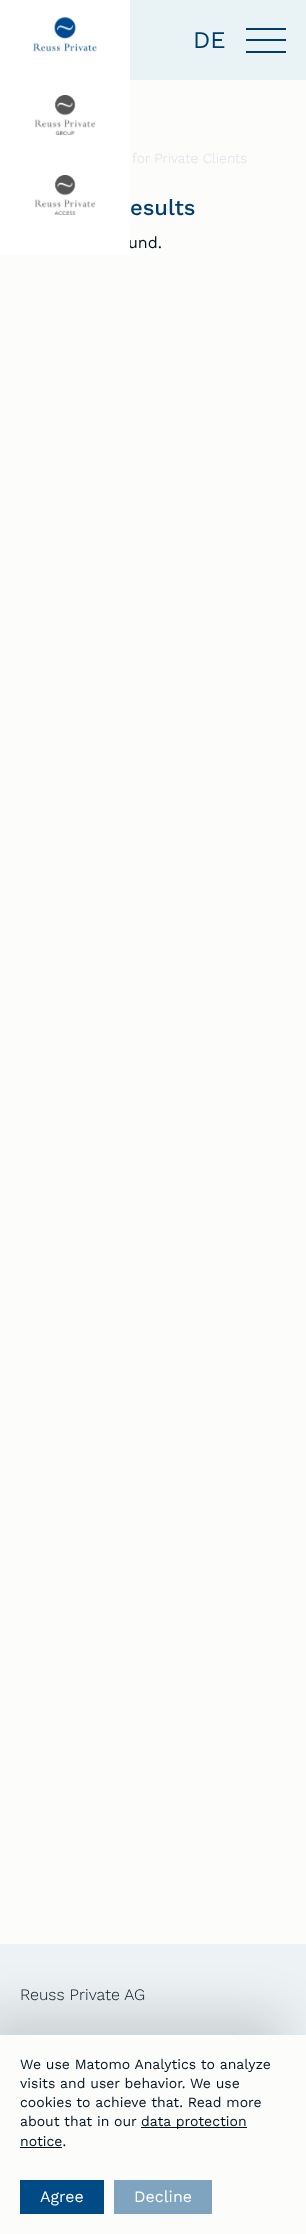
<svg xmlns="http://www.w3.org/2000/svg" width="306" height="2234">
<style>
.a{font:24px Work Sans;fill:#003d6e}
.b{font:300 14px Work Sans;fill:#d9e1e6}
.c{font:500 22px Work Sans;fill:#003d6e}
.d{font:16px Work Sans;fill:#001321}
.e{font:300 16px Work Sans;fill:#001321}
.f{font:14px Work Sans;fill:#001321}
.g{font:16px Work Sans;fill:#fff}
</style>
<rect width="100%" height="100%" fill="#fcfcfa"/>
<path fill="#e9f2f5" d="M130 0h176v80H130z"/>
<path fill="#003d6e" d="M246 28h40v2H246z"/>
<path fill="#003d6e" d="M246 39h40v2H246z"/>
<path fill="#003d6e" d="M246 51h40v2H246z"/>
<path fill="#edf3f5" d="M0 1944h306v91H0z"/>
<path fill="#00000026" filter="blur(25px)" d="M-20 2015h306v209H-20z"/>
<path fill="#fcfcfa" d="M0 2035h306v199H0z"/>
<path fill="#001321" d="M141 2127h106v1H141z"/>
<path fill="#001321" d="M20 2147h42v1H20z"/>
<path fill="#004b86" d="M20 2180h84v34H20z"/>
<path fill="#7ea4c0" d="M114 2180h98v34H114z"/>
<text class="a" x="193" y="48">DE</text>
<text class="b" x="132" y="163">for Private Clients</text>
<text class="c" x="130" y="215">esults</text>
<text class="d" x="128" y="248">und.</text>
<path fill="#fff" d="M0 0h130v255H0z"/>
<image href="1.png" x="33" y="15" width="65" height="37"/>
<image href="3.png" x="35" y="175" width="61" height="40"/>
<image href="2.png" x="35" y="95" width="61" height="40"/>
<text class="e" x="20" y="2000">Reuss Private AG</text>
<text class="f" x="20" y="2069">We use Matomo Analytics to analyze</text>
<text class="f" x="20" y="2088">visits and user behavior. We use</text>
<text class="f" x="20" y="2107">cookies to achieve that. Read more</text>
<text class="f" x="20" y="2126">about that in our</text>
<text class="f" x="141" y="2126">data protection</text>
<text class="f" x="20" y="2146">notice.</text>
<text class="g" x="40" y="2202">Agree</text>
<text class="g" x="134" y="2202">Decline</text>
</svg>
